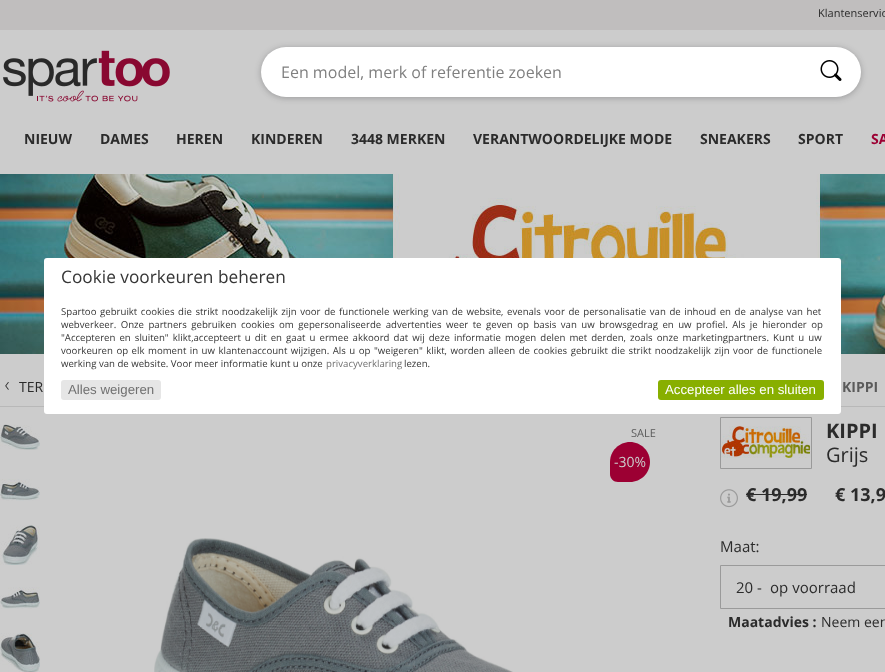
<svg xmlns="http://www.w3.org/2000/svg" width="885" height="672">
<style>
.a{font:11px Open Sans;fill:#2b2b2b}
.b{font:16px Open Sans;fill:#808080}
.c{font:bold 14px Open Sans;fill:#2b2b2b}
.d{font:bold 14px Open Sans;fill:#9c0033}
.e{font:14px Open Sans;fill:#2b2b2b}
.f{font:bold 14px Open Sans;fill:#5a5a5a}
.g{font:11px Open Sans;fill:#5a5a5a}
.h{font:14px Open Sans;fill:#ccc}
.i{font:bold 20px Open Sans;fill:#2b2b2b}
.j{font:20px Open Sans;fill:#2b2b2b}
.k{font:bold 18px Open Sans;fill:#2b2b2b}
.l{font:15px Open Sans;fill:#2b2b2b}
.m{font:17.25px Open Sans;fill:#363636}
.n{font:9.62px Open Sans;fill:#363636}
.o{font:9.62px Open Sans;fill:#707070}
.p{font:13.25px Liberation Sans;fill:#707070}
.q{font:13.25px Liberation Sans;fill:#fff}
</style>
<rect width="100%" height="100%" fill="#ccc"/>
<path fill="#c0bebe" d="M0 0h885v30H0z"/>
<image href="1.png" x="3" y="50" width="167" height="52"/>
<rect fill="#1a1a1d47" filter="blur(3px)" x="261" y="48" width="600" height="50" rx="25"/>
<rect fill="#fff" x="261" y="47" width="600" height="50" rx="25"/>
<image href="2.png" x="820" y="60" width="22" height="21"/>
<image href="3.png" x="0" y="174" width="885" height="180"/>
<path fill="#b8b8b8" d="M0 406h885v1H0z"/>
<image href="4.png" x="5" y="382" width="4" height="8"/>
<image href="5.png" x="0" y="424" width="40" height="26"/>
<image href="6.png" x="0" y="479" width="40" height="22"/>
<image href="7.png" x="0" y="525" width="40" height="40"/>
<image href="8.png" x="0" y="587" width="40" height="22"/>
<image href="9.png" x="0" y="633" width="40" height="39"/>
<path fill="#9c0033" d="M630 442c11 0 20 9 20 20c0 11-9 20-20 20h-12c-4.5 0-8-3.5-8-8v-12c0-11 9-20 20-20z"/>
<image href="10.png" x="154" y="538" width="359" height="134"/>
<path fill="none" stroke="#9a9a9a" d="M720.5 417.5h91v51H720.5z"/>
<image href="11.png" x="721" y="426" width="90" height="32"/>
<image href="12.png" x="720" y="489" width="18" height="19"/>
<path fill="#2b2b2b" d="M746 494h61v1H746z"/>
<path fill="none" stroke="#9a9a9a" d="M720.5 565.5h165v43H720.5z"/>
<rect fill="#fff" x="44" y="258" width="797" height="156" rx="3"/>
<rect fill="#e6e6e6" x="61" y="380" width="100" height="20" rx="3"/>
<rect fill="#88af00" x="658" y="380" width="166" height="20" rx="3"/>
<text class="a" x="818" y="17">Klantenservic</text>
<text class="b" x="281" y="78">Een model, merk of referentie zoeken</text>
<text class="c" x="24" y="144">NIEUW</text>
<text class="c" x="100" y="144">DAMES</text>
<text class="c" x="176" y="144">HEREN</text>
<text class="c" x="251" y="144">KINDEREN</text>
<text class="c" x="351" y="144">3448 MERKEN</text>
<text class="c" x="473" y="144">VERANTWOORDELIJKE MODE</text>
<text class="c" x="700" y="144">SNEAKERS</text>
<text class="c" x="798" y="144">SPORT</text>
<text class="d" x="871" y="144">SA</text>
<text class="e" x="19" y="392">TER</text>
<text class="f" x="842" y="392">KIPPI</text>
<text class="g" x="631" y="437">SALE</text>
<text class="h" x="614" y="467">-30%</text>
<text class="i" x="826" y="438">KIPPI</text>
<text class="j" x="826" y="462">Grijs</text>
<text class="k" x="746" y="501">€ 19,99</text>
<text class="k" x="835" y="501">€ 13,9</text>
<text class="l" x="720" y="552">Maat:</text>
<text class="l" x="736" y="593">20 -</text>
<text class="l" x="770" y="593">op voorraad</text>
<text class="c" x="728" y="627">Maatadvies :</text>
<text class="e" x="821" y="627">Neem een</text>
<text class="m" x="61" y="283">Cookie voorkeuren beheren</text>
<text class="n" x="61" y="315" word-spacing="1.1">Spartoo gebruikt cookies die strikt noodzakelijk zijn voor de functionele werking van de website, evenals voor de personalisatie van de inhoud en de analyse van het</text>
<text class="n" x="61" y="328" word-spacing="2">webverkeer. Onze partners gebruiken cookies om gepersonaliseerde advertenties weer te geven op basis van uw browsgedrag en uw profiel. Als je hieronder op</text>
<text class="n" x="61" y="341" word-spacing="1.6">"Accepteren en sluiten" klikt,accepteert u dit en gaat u ermee akkoord dat wij deze informatie mogen delen met derden, zoals onze marketingpartners. Kunt u uw</text>
<text class="n" x="61" y="354" word-spacing="1">voorkeuren op elk moment in uw klantenaccount wijzigen. Als u op "weigeren" klikt, worden alleen de cookies gebruikt die strikt noodzakelijk zijn voor de functionele</text>
<text class="n" x="61" y="367">werking van de website. Voor meer informatie kunt u onze</text>
<text class="o" x="326" y="367">privacyverklaring</text>
<text class="n" x="404" y="367">lezen.</text>
<text class="p" x="68" y="394">Alles weigeren</text>
<text class="q" x="665" y="394">Accepteer alles en sluiten</text>
</svg>
